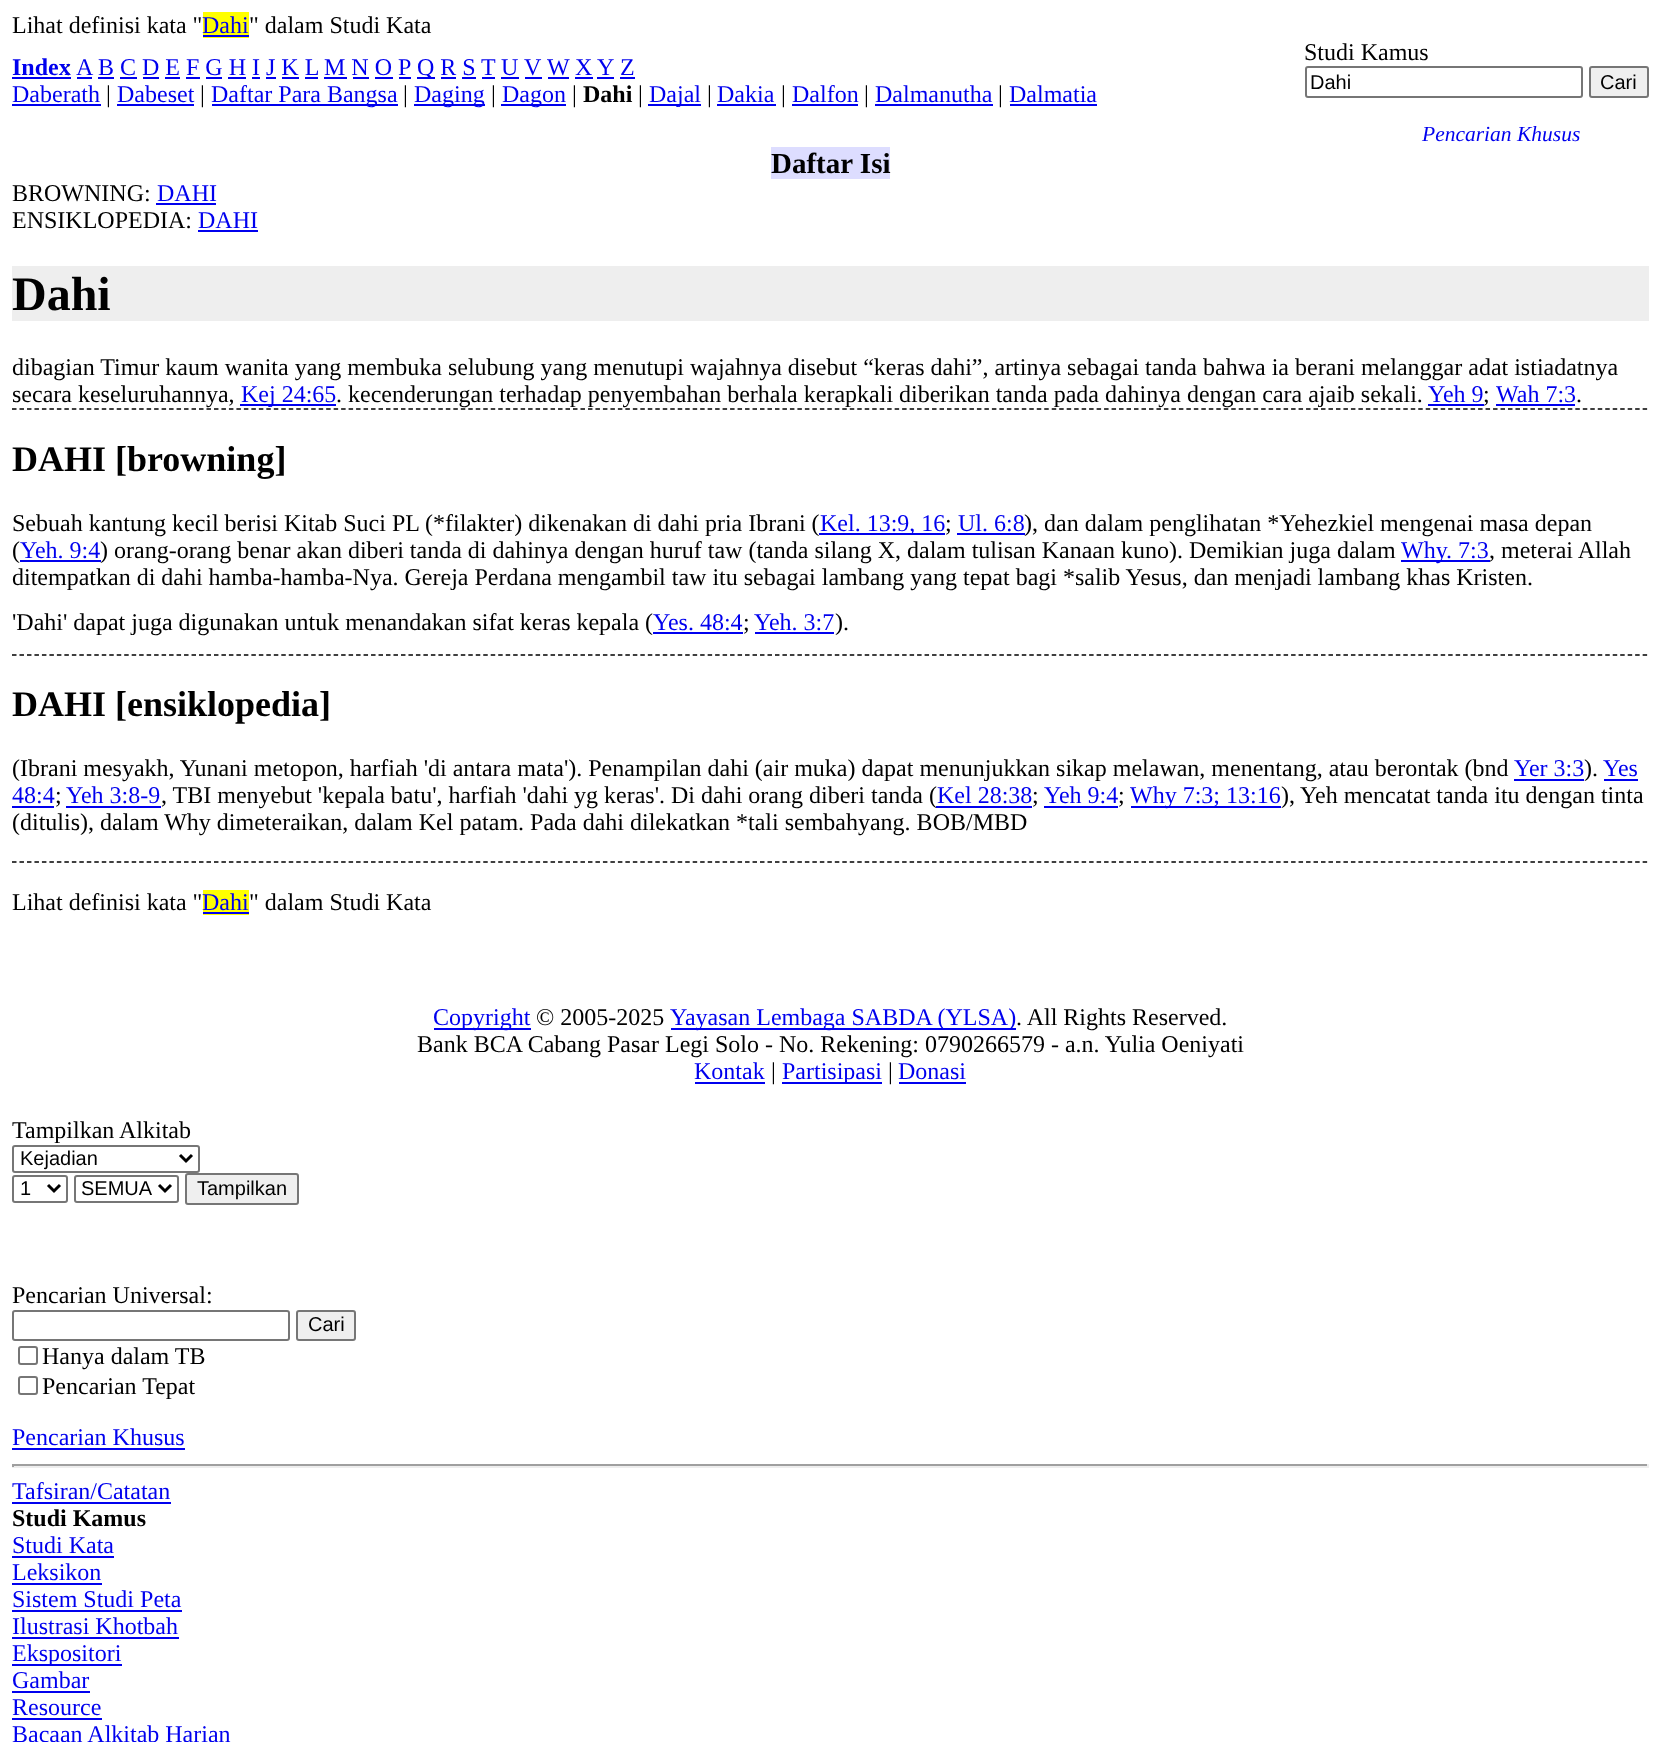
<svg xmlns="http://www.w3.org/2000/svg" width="1660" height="1742">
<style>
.a{font:24px Liberation Serif;fill:#000}
.b{font:24px Liberation Serif;fill:#00e}
.c{font:bold 24px Liberation Serif;fill:#00e}
.d{font:bold 24px Liberation Serif;fill:#000}
.e{font:20px Liberation Sans;fill:#000}
.f{font:italic 21.5px Liberation Serif;fill:#00e}
.g{font:bold 29px Liberation Serif;fill:#000}
.h{font:bold 48px Liberation Serif;fill:#000}
.i{font:bold 36px Liberation Serif;fill:#000}
</style>
<rect width="100%" height="100%" fill="#fff"/>
<path fill="#ff0" d="M203 12h46v26H203z"/>
<path fill="#00e" d="M203 35h46v2H203z"/>
<path fill="#00e" d="M12 77h59v2H12z"/>
<path fill="#00e" d="M77 77h15v2H77z"/>
<path fill="#00e" d="M98 77h16v2H98z"/>
<path fill="#00e" d="M324 77h23v2H324z"/>
<path fill="#00e" d="M417 77h18v2H417z"/>
<path fill="#00e" d="M482 77h13v2H482z"/>
<path fill="#00e" d="M501 77h18v2H501z"/>
<path fill="#00e" d="M525 77h17v2H525z"/>
<path fill="#00e" d="M548 77h21v2H548z"/>
<path fill="#00e" d="M575 77h18v2H575z"/>
<path fill="#00e" d="M597 77h17v2H597z"/>
<path fill="#00e" d="M620 77h15v2H620z"/>
<path fill="#00e" d="M120 77h17v2H120z"/>
<path fill="#00e" d="M143 77h16v2H143z"/>
<path fill="#00e" d="M165 77h15v2H165z"/>
<path fill="#00e" d="M186 77h14v2H186z"/>
<path fill="#00e" d="M206 77h16v2H206z"/>
<path fill="#00e" d="M228 77h18v2H228z"/>
<path fill="#00e" d="M252 77h8v2H252z"/>
<path fill="#00e" d="M266 77h10v2H266z"/>
<path fill="#00e" d="M282 77h17v2H282z"/>
<path fill="#00e" d="M305 77h13v2H305z"/>
<path fill="#00e" d="M353 77h16v2H353z"/>
<path fill="#00e" d="M375 77h18v2H375z"/>
<path fill="#00e" d="M399 77h12v2H399z"/>
<path fill="#00e" d="M441 77h15v2H441z"/>
<path fill="#00e" d="M462 77h14v2H462z"/>
<path fill="#00e" d="M12 104h89v2H12z"/>
<path fill="#00e" d="M117 104h77v2H117z"/>
<path fill="#00e" d="M212 104h186v2H212z"/>
<path fill="#00e" d="M414 104h71v2H414z"/>
<path fill="#00e" d="M501 104h65v2H501z"/>
<path fill="#00e" d="M648 104h53v2H648z"/>
<path fill="#00e" d="M717 104h59v2H717z"/>
<path fill="#00e" d="M792 104h66v2H792z"/>
<path fill="#00e" d="M875 104h118v2H875z"/>
<path fill="#00e" d="M1010 104h87v2H1010z"/>
<rect fill="none" stroke="#767676" stroke-width="2" x="1306" y="67" width="276" height="30" rx="2"/>
<rect fill="#efefef" stroke="#767676" stroke-width="2" x="1590" y="67" width="58" height="30" rx="2"/>
<path fill="#ddf" d="M771 147h119v32H771z"/>
<path fill="#00e" d="M156 203h60v2H156z"/>
<path fill="#00e" d="M198 230h60v2H198z"/>
<path fill="#eee" d="M12 266h1637v55H12z"/>
<path fill="none" stroke="#000" stroke-width="1.5" stroke-dasharray="4.5 2.98" d="M12 409h1636.5"/>
<path fill="#00e" d="M240 404h96v2H240z"/>
<path fill="#00e" d="M1428 404h56v2H1428z"/>
<path fill="#00e" d="M1496 404h79v2H1496z"/>
<path fill="none" stroke="#000" stroke-width="1.5" stroke-dasharray="4.5 2.98" d="M12 655h1636.5"/>
<path fill="#00e" d="M819 533h126v2H819z"/>
<path fill="#00e" d="M957 533h68v2H957z"/>
<path fill="#00e" d="M20 560h81v2H20z"/>
<path fill="#00e" d="M1401 560h89v2H1401z"/>
<path fill="#00e" d="M653 632h90v2H653z"/>
<path fill="#00e" d="M755 632h79v2H755z"/>
<path fill="none" stroke="#000" stroke-width="1.5" stroke-dasharray="4.5 2.98" d="M12 862h1636.5"/>
<path fill="#00e" d="M1514 779h70v2H1514z"/>
<path fill="#00e" d="M1604 779h34v2H1604z"/>
<path fill="#00e" d="M12 806h42v2H12z"/>
<path fill="#00e" d="M66 806h95v2H66z"/>
<path fill="#00e" d="M936 806h96v2H936z"/>
<path fill="#00e" d="M1044 806h74v2H1044z"/>
<path fill="#00e" d="M1131 806h150v2H1131z"/>
<path fill="#ff0" d="M203 890h46v25H203z"/>
<path fill="#00e" d="M203 912h46v2H203z"/>
<path fill="#00e" d="M434 1028h97v2H434z"/>
<path fill="#00e" d="M671 1028h345v2H671z"/>
<path fill="#00e" d="M695 1082h70v2H695z"/>
<path fill="#00e" d="M782 1082h100v2H782z"/>
<path fill="#00e" d="M899 1082h67v2H899z"/>
<rect fill="none" stroke="#767676" stroke-width="2" x="13" y="1146" width="186" height="26" rx="2"/>
<path fill="none" stroke="#000" stroke-width="3" d="M180 1155l6 6l6-6"/>
<rect fill="none" stroke="#767676" stroke-width="2" x="13" y="1176" width="54" height="26" rx="2"/>
<path fill="none" stroke="#000" stroke-width="3" d="M48 1185l6 6l6-6"/>
<rect fill="none" stroke="#767676" stroke-width="2" x="75" y="1176" width="103" height="26" rx="2"/>
<path fill="none" stroke="#000" stroke-width="3" d="M159 1185l6 6l6-6"/>
<rect fill="#efefef" stroke="#767676" stroke-width="2" x="186" y="1174" width="112" height="30" rx="2"/>
<rect fill="none" stroke="#767676" stroke-width="2" x="13" y="1311" width="276" height="29" rx="2"/>
<rect fill="#efefef" stroke="#767676" stroke-width="2" x="297" y="1311" width="58" height="29" rx="2"/>
<rect fill="none" stroke="#767676" stroke-width="2" x="19" y="1347" width="18" height="17" rx="2"/>
<rect fill="none" stroke="#767676" stroke-width="2" x="19" y="1377" width="18" height="17" rx="2"/>
<path fill="#00e" d="M12 1448h173v2H12z"/>
<path fill="#9f9f9f" d="M12 1464h1637v2H12z"/>
<path fill="#eee" d="M1647 1464h2v3H1647z"/>
<path fill="#eee" d="M12 1466h1637v2H12z"/>
<path fill="#9f9f9f" d="M12 1464h2v3H12z"/>
<path fill="#00e" d="M12 1502h159v2H12z"/>
<path fill="#00e" d="M12 1556h102v2H12z"/>
<path fill="#00e" d="M12 1583h90v2H12z"/>
<path fill="#00e" d="M12 1610h170v2H12z"/>
<path fill="#00e" d="M12 1637h167v2H12z"/>
<path fill="#00e" d="M12 1664h110v2H12z"/>
<path fill="#00e" d="M12 1691h78v2H12z"/>
<path fill="#00e" d="M12 1718h90v2H12z"/>
<text class="a" x="12" y="33">Lihat definisi kata "</text>
<text class="b" x="202" y="33">Dahi</text>
<text class="a" x="249" y="33">" dalam Studi Kata</text>
<text class="b" x="76" y="75">A</text>
<text class="b" x="98" y="75">B C D E F G H I J K L</text>
<text class="b" x="324" y="75">M N O P</text>
<text class="b" x="417" y="75">Q R S</text>
<text class="b" x="481" y="75">T</text>
<text class="b" x="501" y="75">U</text>
<text class="b" x="524" y="75">V</text>
<text class="b" x="547" y="75">W</text>
<text class="b" x="575" y="75">X</text>
<text class="b" x="597" y="75">Y</text>
<text class="b" x="620" y="75">Z</text>
<text class="a" x="65" y="75">:</text>
<text class="c" x="12" y="75">Index</text>
<text class="b" x="12" y="102">Daberath</text>
<text class="a" x="106" y="102">|</text>
<text class="b" x="117" y="102">Dabeset</text>
<text class="a" x="200" y="102">|</text>
<text class="b" x="211" y="102">Daftar Para Bangsa</text>
<text class="a" x="403" y="102">|</text>
<text class="b" x="414" y="102">Daging</text>
<text class="a" x="491" y="102">|</text>
<text class="b" x="502" y="102">Dagon</text>
<text class="a" x="572" y="102">|</text>
<text class="d" x="583" y="102">Dahi</text>
<text class="a" x="638" y="102">|</text>
<text class="b" x="649" y="102">Dajal</text>
<text class="a" x="707" y="102">|</text>
<text class="b" x="717" y="102">Dakia</text>
<text class="a" x="781" y="102">|</text>
<text class="b" x="792" y="102">Dalfon</text>
<text class="a" x="864" y="102">|</text>
<text class="b" x="875" y="102">Dalmanutha</text>
<text class="a" x="998" y="102">|</text>
<text class="b" x="1009" y="102">Dalmatia</text>
<text class="a" x="1304" y="60">Studi Kamus</text>
<text class="e" x="1310" y="89">Dahi</text>
<text class="e" x="1600" y="89">Cari</text>
<text class="f" x="1422" y="141">Pencarian Khusus</text>
<text class="g" x="771" y="173">Daftar Isi</text>
<text class="a" x="12" y="201">BROWNING:</text>
<text class="b" x="157" y="201">DAHI</text>
<text class="a" x="12" y="228">ENSIKLOPEDIA:</text>
<text class="b" x="198" y="228">DAHI</text>
<text class="h" x="12" y="310">Dahi</text>
<text class="a" x="12" y="375">dibagian Timur kaum wanita yang membuka selubung yang menutupi wajahnya disebut “keras dahi”, artinya sebagai tanda bahwa ia berani melanggar adat istiadatnya</text>
<text class="a" x="12" y="402">secara keseluruhannya,</text>
<text class="b" x="241" y="402">Kej 24:65</text>
<text class="a" x="336" y="402">. kecenderungan terhadap penyembahan berhala kerapkali diberikan tanda pada dahinya dengan cara ajaib sekali.</text>
<text class="b" x="1428" y="402">Yeh 9</text>
<text class="a" x="1483" y="402">;</text>
<text class="b" x="1496" y="402">Wah 7:3</text>
<text class="a" x="1576" y="402">.</text>
<text class="i" x="12" y="471">DAHI [browning]</text>
<text class="a" x="12" y="531">Sebuah kantung kecil berisi Kitab Suci PL (*filakter) dikenakan di dahi pria Ibrani (</text>
<text class="b" x="820" y="531">Kel. 13:9, 16</text>
<text class="a" x="945" y="531">;</text>
<text class="b" x="958" y="531">Ul. 6:8</text>
<text class="a" x="1024" y="531">), dan dalam penglihatan *Yehezkiel mengenai masa depan</text>
<text class="a" x="12" y="558">(</text>
<text class="b" x="20" y="558">Yeh. 9:4</text>
<text class="a" x="100" y="558">) orang-orang benar akan diberi tanda di dahinya dengan huruf taw (tanda silang X, dalam tulisan Kanaan kuno). Demikian juga dalam</text>
<text class="b" x="1401" y="558">Why. 7:3</text>
<text class="a" x="1489" y="558">, meterai Allah</text>
<text class="a" x="12" y="585">ditempatkan di dahi hamba-hamba-Nya. Gereja Perdana mengambil taw itu sebagai lambang yang tepat bagi *salib Yesus, dan menjadi lambang khas Kristen.</text>
<text class="a" x="12" y="630">'Dahi' dapat juga digunakan untuk menandakan sifat keras kepala (</text>
<text class="b" x="653" y="630">Yes. 48:4</text>
<text class="a" x="743" y="630">;</text>
<text class="b" x="754" y="630">Yeh. 3:7</text>
<text class="a" x="835" y="630">).</text>
<text class="i" x="12" y="716">DAHI [ensiklopedia]</text>
<text class="a" x="12" y="776">(Ibrani mesyakh, Yunani metopon, harfiah 'di antara mata'). Penampilan dahi (air muka) dapat menunjukkan sikap melawan, menentang, atau berontak (bnd</text>
<text class="b" x="1514" y="776">Yer 3:3</text>
<text class="a" x="1584" y="776">).</text>
<text class="b" x="1603" y="776">Yes</text>
<text class="b" x="12" y="803">48:4</text>
<text class="a" x="55" y="803">;</text>
<text class="b" x="66" y="803">Yeh 3:8-9</text>
<text class="a" x="161" y="803">, TBI menyebut 'kepala batu', harfiah 'dahi yg keras'. Di dahi orang diberi tanda (</text>
<text class="b" x="937" y="803">Kel 28:38</text>
<text class="a" x="1032" y="803">;</text>
<text class="b" x="1044" y="803">Yeh 9:4</text>
<text class="a" x="1118" y="803">;</text>
<text class="b" x="1130" y="803">Why 7:3; 13:16</text>
<text class="a" x="1281" y="803">), Yeh mencatat tanda itu dengan tinta</text>
<text class="a" x="12" y="830">(ditulis), dalam Why dimeteraikan, dalam Kel patam. Pada dahi dilekatkan *tali sembahyang. BOB/MBD</text>
<text class="a" x="12" y="910">Lihat definisi kata "</text>
<text class="b" x="202" y="910">Dahi</text>
<text class="a" x="249" y="910">" dalam Studi Kata</text>
<text class="b" x="433" y="1025">Copyright</text>
<text class="a" x="536" y="1025">© 2005-2025</text>
<text class="b" x="670" y="1025">Yayasan Lembaga SABDA (YLSA)</text>
<text class="a" x="1016" y="1025">. All Rights Reserved.</text>
<text class="a" x="417" y="1052">Bank BCA Cabang Pasar Legi Solo - No. Rekening: 0790266579 - a.n. Yulia Oeniyati</text>
<text class="b" x="694" y="1079">Kontak</text>
<text class="a" x="771" y="1079">|</text>
<text class="b" x="782" y="1079">Partisipasi</text>
<text class="a" x="888" y="1079">|</text>
<text class="b" x="898" y="1079">Donasi</text>
<text class="a" x="12" y="1138">Tampilkan Alkitab</text>
<text class="e" x="20" y="1165">Kejadian</text>
<text class="e" x="20" y="1195">1</text>
<text class="e" x="81" y="1195">SEMUA</text>
<text class="e" x="197" y="1195">Tampilkan</text>
<text class="a" x="12" y="1303">Pencarian Universal:</text>
<text class="e" x="308" y="1331">Cari</text>
<text class="a" x="42" y="1364">Hanya dalam TB</text>
<text class="a" x="42" y="1394">Pencarian Tepat</text>
<text class="b" x="12" y="1445">Pencarian Khusus</text>
<text class="b" x="12" y="1499">Tafsiran/Catatan</text>
<text class="d" x="12" y="1526">Studi Kamus</text>
<text class="b" x="12" y="1553">Studi Kata</text>
<text class="b" x="12" y="1580">Leksikon</text>
<text class="b" x="12" y="1607">Sistem Studi Peta</text>
<text class="b" x="12" y="1634">Ilustrasi Khotbah</text>
<text class="b" x="12" y="1661">Ekspositori</text>
<text class="b" x="12" y="1688">Gambar</text>
<text class="b" x="12" y="1715">Resource</text>
<text class="b" x="12" y="1742">Bacaan Alkitab Harian</text>
</svg>
